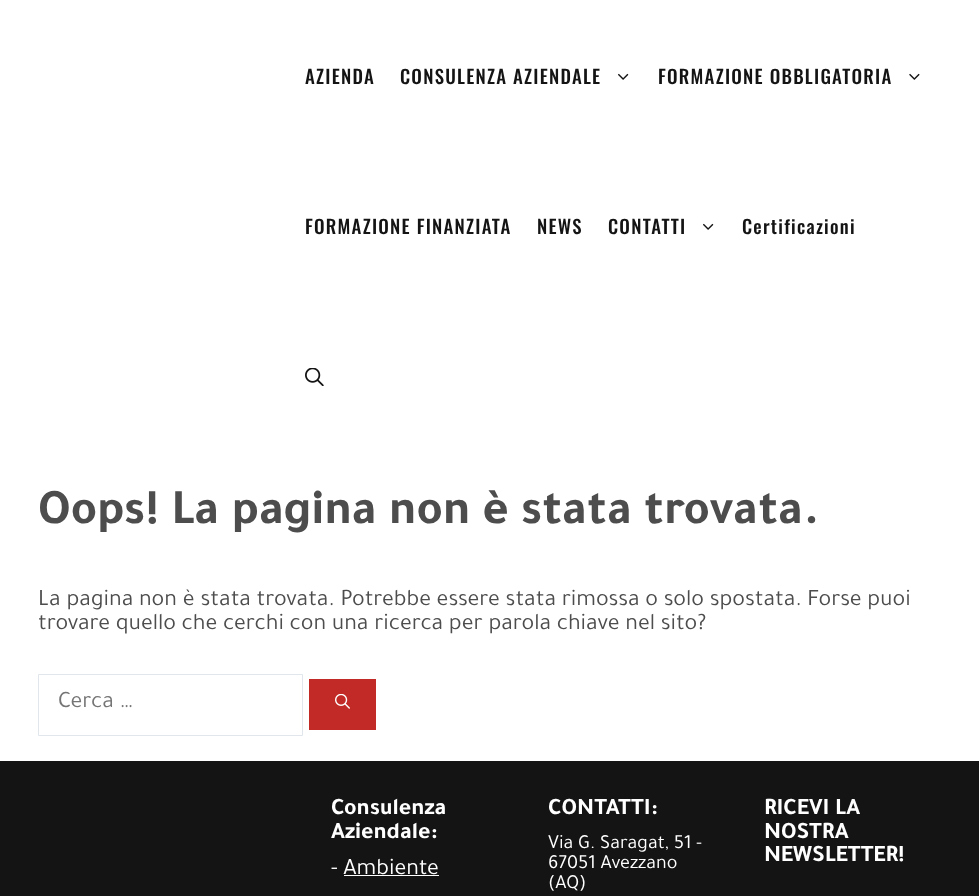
<svg xmlns="http://www.w3.org/2000/svg" width="979" height="896">
<style>
.a{font:500 18.75px Oswald;letter-spacing:1.25px;fill:#141414}
.b{font:bold 50px Tajawal;fill:#4d4d4d}
.c{font:23.75px Tajawal;fill:#4d4d4d}
.d{font:23.75px Tajawal;fill:#757575}
.e{font:bold 23.75px Tajawal;fill:#fff}
.f{font:23.75px Tajawal;fill:#fff}
.g{font:20px Tajawal;fill:#fff}
</style>
<rect width="100%" height="100%" fill="#fff"/>
<image href="1.png" x="618" y="73" width="11" height="7"/>
<image href="2.png" x="909" y="73" width="11" height="7"/>
<image href="1.png" x="703" y="223" width="11" height="7"/>
<image href="3.png" x="305" y="368" width="19" height="18"/>
<path fill="none" stroke="#e1e6ed" d="M38.5 674.5h264v61H38.5z"/>
<path fill="#c12a27" d="M309 679h67v51H309z"/>
<image href="4.png" x="335" y="694" width="15" height="15"/>
<path fill="#141414" d="M0 761h979v135H0z"/>
<path fill="#fff" d="M344 875h95v1H344z"/>
<text class="a" x="305" y="84">AZIENDA</text>
<text class="a" x="400" y="84">CONSULENZA AZIENDALE</text>
<text class="a" x="658" y="84">FORMAZIONE OBBLIGATORIA</text>
<text class="a" x="305" y="234">FORMAZIONE FINANZIATA</text>
<text class="a" x="537" y="234">NEWS</text>
<text class="a" x="608" y="234">CONTATTI</text>
<text class="a" x="742" y="234">Certificazioni</text>
<text class="b" x="38" y="523">Oops! La pagina non è stata trovata.</text>
<text class="c" x="38" y="605">La pagina non è stata trovata. Potrebbe essere stata rimossa o solo spostata. Forse puoi</text>
<text class="c" x="38" y="629">trovare quello che cerchi con una ricerca per parola chiave nel sito?</text>
<text class="d" x="58" y="707">Cerca …</text>
<text class="e" x="331" y="814">Consulenza</text>
<text class="e" x="331" y="838">Aziendale:</text>
<text class="f" x="331" y="874">- Ambiente</text>
<text class="e" x="548" y="814">CONTATTI:</text>
<text class="g" x="548" y="848">Via G. Saragat, 51 -</text>
<text class="g" x="548" y="868">67051 Avezzano</text>
<text class="g" x="548" y="888">(AQ)</text>
<text class="e" x="764" y="814">RICEVI LA</text>
<text class="e" x="764" y="838">NOSTRA</text>
<text class="e" x="764" y="861">NEWSLETTER!</text>
</svg>
